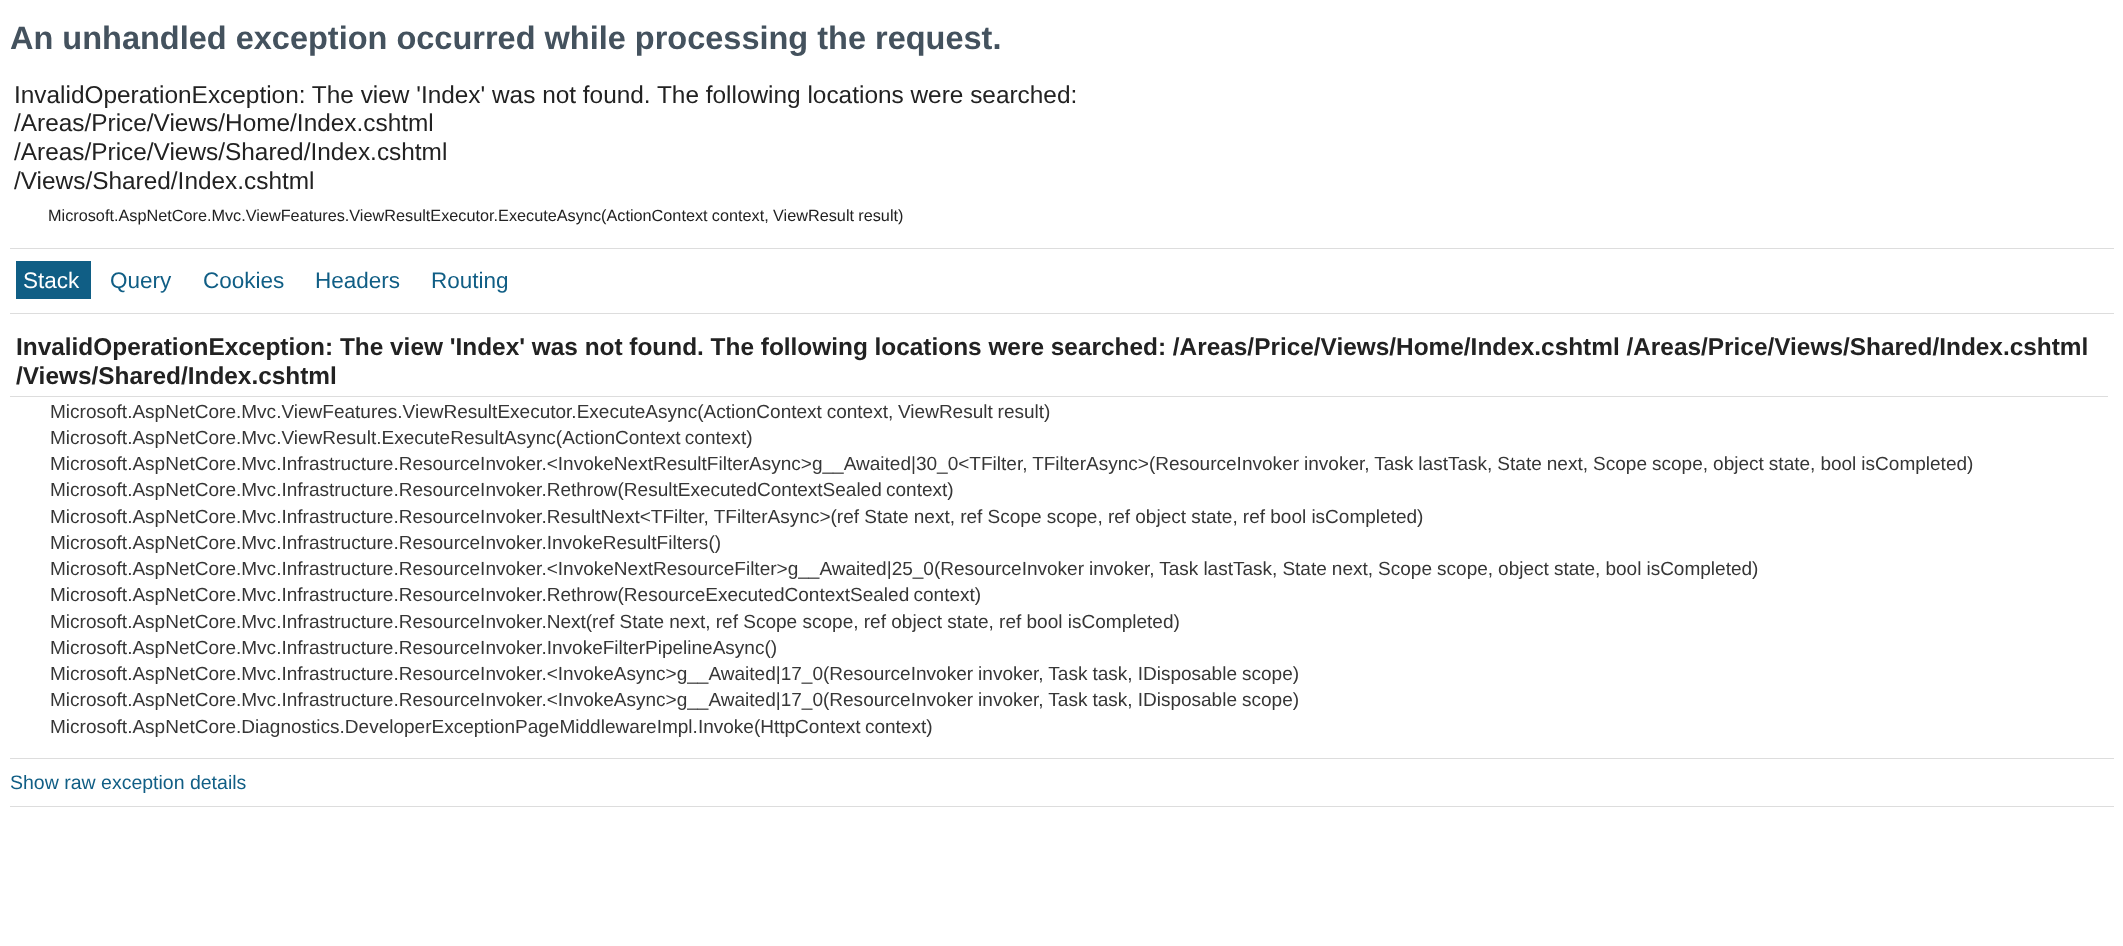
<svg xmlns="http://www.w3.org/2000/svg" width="2123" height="946">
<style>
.a{font:bold 32.5px Liberation Sans;fill:#44525e}
.b{font:24.4px Liberation Sans;fill:#222}
.c{font:16.25px Liberation Sans;fill:#222}
.d{font:22.5px Liberation Sans;fill:#fff}
.e{font:22.5px Liberation Sans;fill:#105e85}
.f{font:bold 24.4px Liberation Sans;fill:#222}
.g{font:19.02px Liberation Sans;fill:#363636}
.h{font:19.5px Liberation Sans;fill:#105e85}
</style>
<rect width="100%" height="100%" fill="#fff"/>
<path fill="#ddd" d="M10 248h2104v1H10z"/>
<path fill="#ddd" d="M10 313h2104v1H10z"/>
<path fill="#105e85" d="M16 261h75v38H16z"/>
<path fill="#ddd" d="M10 396h2098v1H10z"/>
<path fill="#ddd" d="M10 758h2104v1H10z"/>
<path fill="#ddd" d="M10 806h2104v1H10z"/>
<text class="a" x="10" y="49">An unhandled exception occurred while processing the request.</text>
<text class="b" x="14" y="103">InvalidOperationException: The view 'Index' was not found. The following locations were searched:</text>
<text class="b" x="14" y="131">/Areas/Price/Views/Home/Index.cshtml</text>
<text class="b" x="14" y="160">/Areas/Price/Views/Shared/Index.cshtml</text>
<text class="b" x="14" y="189">/Views/Shared/Index.cshtml</text>
<text class="c" x="48" y="221" word-spacing="-0.25">Microsoft.AspNetCore.Mvc.ViewFeatures.ViewResultExecutor.ExecuteAsync(ActionContext context, ViewResult result)</text>
<text class="d" x="23" y="288">Stack</text>
<text class="e" x="110" y="288">Query</text>
<text class="e" x="203" y="288">Cookies</text>
<text class="e" x="315" y="288">Headers</text>
<text class="e" x="431" y="288">Routing</text>
<text class="f" x="16" y="355">InvalidOperationException: The view 'Index' was not found. The following locations were searched: /Areas/Price/Views/Home/Index.cshtml /Areas/Price/Views/Shared/Index.cshtml</text>
<text class="f" x="16" y="384">/Views/Shared/Index.cshtml</text>
<text class="g" x="50" y="418" word-spacing="-0.5">Microsoft.AspNetCore.Mvc.ViewFeatures.ViewResultExecutor.ExecuteAsync(ActionContext context, ViewResult result)</text>
<text class="g" x="50" y="444" word-spacing="-1">Microsoft.AspNetCore.Mvc.ViewResult.ExecuteResultAsync(ActionContext context)</text>
<text class="g" x="50" y="470" word-spacing="-0.25">Microsoft.AspNetCore.Mvc.Infrastructure.ResourceInvoker.&lt;InvokeNextResultFilterAsync&gt;g__Awaited|30_0&lt;TFilter, TFilterAsync&gt;(ResourceInvoker invoker, Task lastTask, State next, Scope scope, object state, bool isCompleted)</text>
<text class="g" x="50" y="496" word-spacing="-1">Microsoft.AspNetCore.Mvc.Infrastructure.ResourceInvoker.Rethrow(ResultExecutedContextSealed context)</text>
<text class="g" x="50" y="523" word-spacing="-0.1">Microsoft.AspNetCore.Mvc.Infrastructure.ResourceInvoker.ResultNext&lt;TFilter, TFilterAsync&gt;(ref State next, ref Scope scope, ref object state, ref bool isCompleted)</text>
<text class="g" x="50" y="549">Microsoft.AspNetCore.Mvc.Infrastructure.ResourceInvoker.InvokeResultFilters()</text>
<text class="g" x="50" y="575" word-spacing="-0.25">Microsoft.AspNetCore.Mvc.Infrastructure.ResourceInvoker.&lt;InvokeNextResourceFilter&gt;g__Awaited|25_0(ResourceInvoker invoker, Task lastTask, State next, Scope scope, object state, bool isCompleted)</text>
<text class="g" x="50" y="601" word-spacing="-1">Microsoft.AspNetCore.Mvc.Infrastructure.ResourceInvoker.Rethrow(ResourceExecutedContextSealed context)</text>
<text class="g" x="50" y="628">Microsoft.AspNetCore.Mvc.Infrastructure.ResourceInvoker.Next(ref State next, ref Scope scope, ref object state, ref bool isCompleted)</text>
<text class="g" x="50" y="654">Microsoft.AspNetCore.Mvc.Infrastructure.ResourceInvoker.InvokeFilterPipelineAsync()</text>
<text class="g" x="50" y="680" word-spacing="-0.25">Microsoft.AspNetCore.Mvc.Infrastructure.ResourceInvoker.&lt;InvokeAsync&gt;g__Awaited|17_0(ResourceInvoker invoker, Task task, IDisposable scope)</text>
<text class="g" x="50" y="706" word-spacing="-0.25">Microsoft.AspNetCore.Mvc.Infrastructure.ResourceInvoker.&lt;InvokeAsync&gt;g__Awaited|17_0(ResourceInvoker invoker, Task task, IDisposable scope)</text>
<text class="g" x="50" y="733" word-spacing="-1">Microsoft.AspNetCore.Diagnostics.DeveloperExceptionPageMiddlewareImpl.Invoke(HttpContext context)</text>
<text class="h" x="10" y="789">Show raw exception details</text>
</svg>
